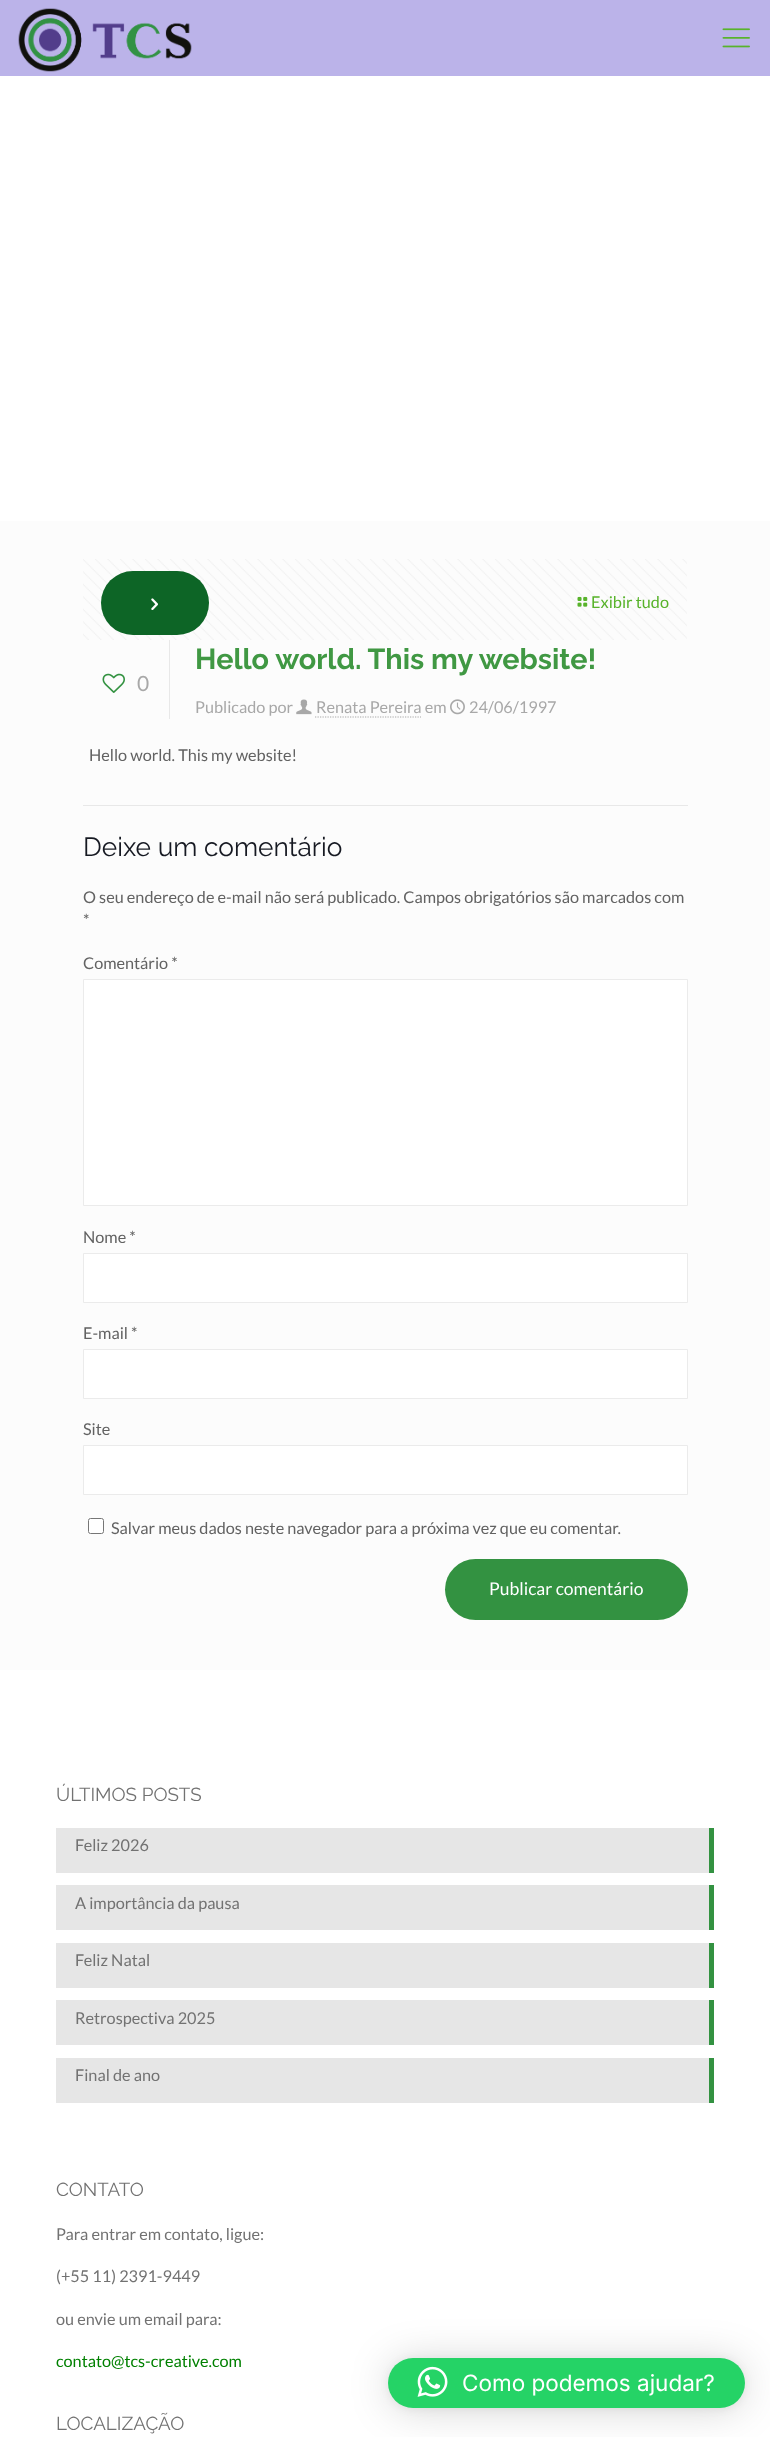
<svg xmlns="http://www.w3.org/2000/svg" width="770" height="2437">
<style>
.a{font:16.25px Lato;fill:#58b32b}
.b{font:21px Lato;fill:#a8a8a8}
.c{font:bold 28.75px Raleway;fill:#409843}
.d{font:16.25px Lato;fill:#a8a8a8}
.e{font:16.25px Lato;fill:#626262}
.f{font:26.25px Raleway;fill:#161922}
.g{font:17.5px Lato;fill:#fff}
.h{font:18.75px Raleway;fill:#727272}
.i{font:16.25px Lato;fill:#727272}
.j{font:16.25px Lato;fill:#008000}
.k{font:22.5px Inter;fill:#fff}
</style>
<rect width="100%" height="100%" fill="#fff"/>
<path fill="#bbb3e9" d="M0 0h770v76H0z"/>
<image href="1.png" x="18" y="8" width="174" height="64"/>
<image href="2.png" x="722" y="28" width="28" height="20"/>
<path fill="#fcfcfc" d="M0 521h770v1149H0z"/>
<image href="3.png" x="83" y="559" width="604" height="81"/>
<rect fill="#0d6526" x="101" y="571" width="108" height="64" rx="32"/>
<image href="4.png" x="151" y="598" width="7" height="12"/>
<image href="5.png" x="577" y="596" width="11" height="11"/>
<image href="6.png" x="102" y="673" width="23" height="20"/>
<path fill="#e8e8e8" d="M169 640h1v79H169z"/>
<image href="7.png" x="296" y="699" width="16" height="16"/>
<path fill="none" stroke="#a8a8a8" stroke-width="1.2" stroke-dasharray="1.25 1.25" d="M315 717h106"/>
<image href="8.png" x="450" y="699" width="15" height="16"/>
<path fill="#e8e8e8" d="M83 805h605v1H83z"/>
<path fill="#fff" stroke="#ebebeb" d="M83.5 979.5h604v226H83.5z"/>
<path fill="#fff" stroke="#ebebeb" d="M83.5 1253.5h604v49H83.5z"/>
<path fill="#fff" stroke="#ebebeb" d="M83.5 1349.5h604v49H83.5z"/>
<path fill="#fff" stroke="#ebebeb" d="M83.5 1445.5h604v49H83.5z"/>
<rect fill="#fff" stroke="#767676" x="88.5" y="1518.5" width="15" height="15" rx="2"/>
<rect fill="#339241" x="445" y="1559" width="243" height="61" rx="30.5"/>
<path fill="#e6e6e6" d="M56 1828h653v45H56z"/>
<path fill="#339241" d="M709 1828h5v45H709z"/>
<path fill="#e6e6e6" d="M56 1885h653v45H56z"/>
<path fill="#339241" d="M709 1885h5v45H709z"/>
<path fill="#e6e6e6" d="M56 1943h653v45H56z"/>
<path fill="#339241" d="M709 1943h5v45H709z"/>
<path fill="#e6e6e6" d="M56 2000h653v45H56z"/>
<path fill="#339241" d="M709 2000h5v45H709z"/>
<path fill="#e6e6e6" d="M56 2058h653v45H56z"/>
<path fill="#339241" d="M709 2058h5v45H709z"/>
<rect fill="#00000029" filter="blur(20px)" x="388" y="2360" width="357" height="50" rx="25"/>
<rect fill="#0000000f" filter="blur(4px)" x="388" y="2359" width="357" height="50" rx="25"/>
<rect fill="#25d366" x="388" y="2358" width="357" height="50" rx="25"/>
<image href="9.png" x="417" y="2366" width="31" height="31"/>
<text class="a" x="591" y="608">Exibir tudo</text>
<text class="b" x="137" y="691">0</text>
<text class="c" x="195" y="669">Hello world. This my website!</text>
<text class="d" x="195" y="713">Publicado por</text>
<text class="d" x="316" y="713">Renata Pereira em</text>
<text class="d" x="469" y="713">24/06/1997</text>
<text class="e" x="89" y="761">Hello world. This my website!</text>
<text class="f" x="83" y="856">Deixe um comentário</text>
<text class="e" x="83" y="903">O seu endereço de e-mail não será publicado. Campos obrigatórios são marcados com</text>
<text class="e" x="83" y="926">*</text>
<text class="e" x="83" y="969">Comentário *</text>
<text class="e" x="83" y="1243">Nome *</text>
<text class="e" x="83" y="1339">E-mail *</text>
<text class="e" x="83" y="1435">Site</text>
<text class="e" x="111" y="1534">Salvar meus dados neste navegador para a próxima vez que eu comentar.</text>
<text class="g" x="489" y="1595">Publicar comentário</text>
<text class="h" x="56" y="1801">ÚLTIMOS POSTS</text>
<text class="i" x="75" y="1851">Feliz 2026</text>
<text class="i" x="75" y="1909">A importância da pausa</text>
<text class="i" x="75" y="1966">Feliz Natal</text>
<text class="i" x="75" y="2024">Retrospectiva 2025</text>
<text class="i" x="75" y="2081">Final de ano</text>
<text class="h" x="56" y="2196">CONTATO</text>
<text class="i" x="56" y="2240">Para entrar em contato, ligue:</text>
<text class="i" x="56" y="2282">(+55 11) 2391-9449</text>
<text class="i" x="56" y="2325">ou envie um email para:</text>
<text class="j" x="56" y="2367">contato@tcs-creative.com</text>
<text class="h" x="56" y="2430">LOCALIZAÇÃO</text>
<text class="k" x="462" y="2391">Como podemos ajudar?</text>
</svg>
